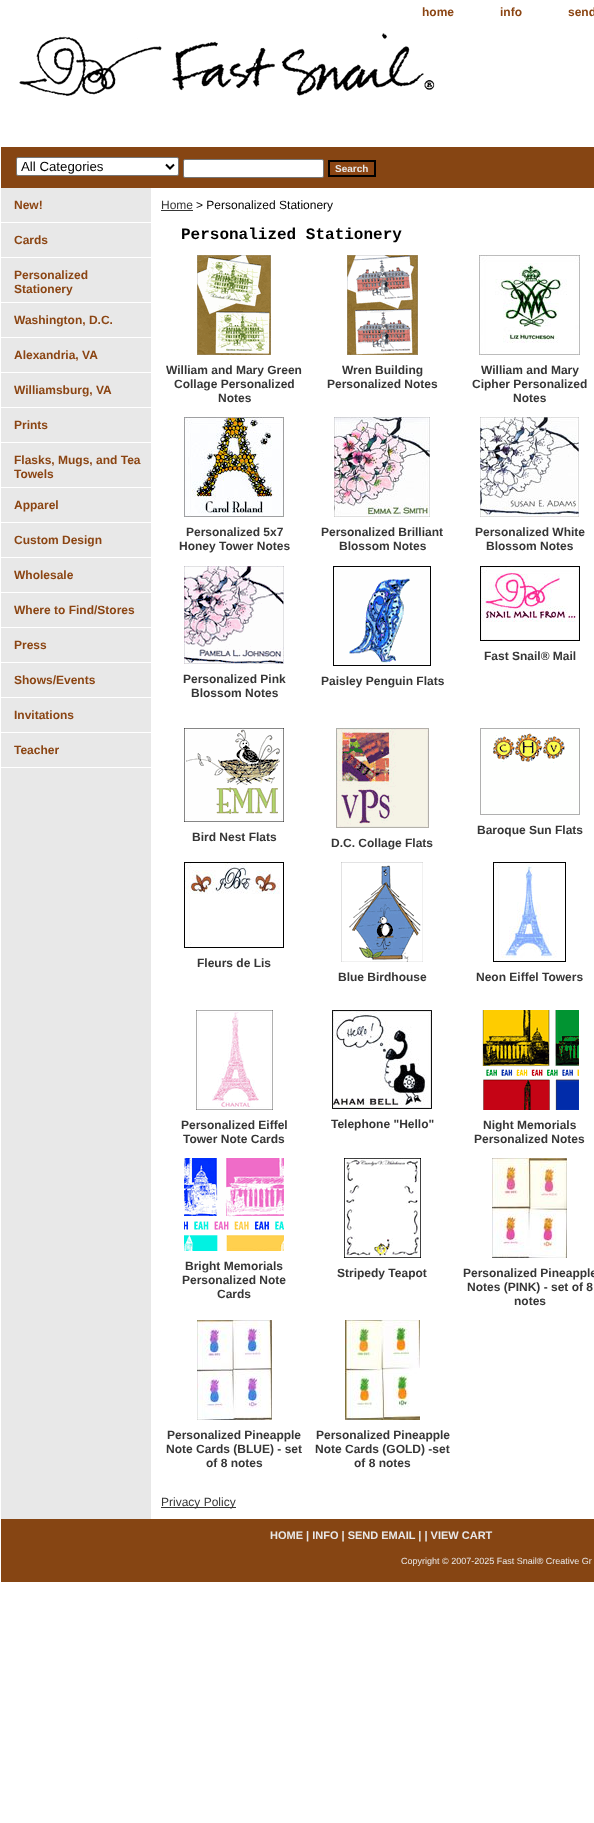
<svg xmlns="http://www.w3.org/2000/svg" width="594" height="1823">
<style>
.a{font:bold 12px Liberation Sans;fill:#8b4513}
.b{font:13.25px Liberation Sans;fill:#000}
.c{font:bold 10px Liberation Sans;fill:#e8e8e8}
.d{font:12px Liberation Sans;fill:#363636}
.e{font:12px Liberation Sans;fill:#000}
.f{font:bold 16px Liberation Mono;fill:#000}
.g{font:bold 12px Liberation Sans;fill:#363636}
.h{font:bold 11px Liberation Sans;fill:#e8e8e8}
.i{font:9px Liberation Sans;fill:#e8e8e8}
</style>
<rect width="100%" height="100%" fill="#fff"/>
<image href="1.png" x="19" y="33" width="416" height="63"/>
<path fill="#864513" d="M1 147h593v41H1z"/>
<rect fill="#fff" stroke="#767676" x="16.5" y="157.5" width="162" height="18" rx="1.5"/>
<path fill="none" stroke="#000" stroke-width="2" d="M166 164.5l4 4l4-4"/>
<rect fill="#fff" stroke="#767676" x="183.5" y="159.5" width="140" height="18" rx="1.5"/>
<path fill="#8b4513" stroke="#000" stroke-width="2" d="M329 161h46v15H329z"/>
<path fill="#e8e8e8" d="M1 188h150v1331H1z"/>
<path fill="#fff" d="M1 222h150v1H1z"/>
<path fill="#fff" d="M1 257h150v1H1z"/>
<path fill="#fff" d="M1 302h150v1H1z"/>
<path fill="#fff" d="M1 337h150v1H1z"/>
<path fill="#fff" d="M1 372h150v1H1z"/>
<path fill="#fff" d="M1 407h150v1H1z"/>
<path fill="#fff" d="M1 442h150v1H1z"/>
<path fill="#fff" d="M1 487h150v1H1z"/>
<path fill="#fff" d="M1 522h150v1H1z"/>
<path fill="#fff" d="M1 557h150v1H1z"/>
<path fill="#fff" d="M1 592h150v1H1z"/>
<path fill="#fff" d="M1 627h150v1H1z"/>
<path fill="#fff" d="M1 662h150v1H1z"/>
<path fill="#fff" d="M1 697h150v1H1z"/>
<path fill="#fff" d="M1 732h150v1H1z"/>
<path fill="#fff" d="M1 767h150v1H1z"/>
<path fill="#363636" d="M161 210h32v1H161z"/>
<image href="2.png" x="197" y="255" width="74" height="100"/>
<image href="3.png" x="347" y="255" width="71" height="100"/>
<image href="4.png" x="479" y="255" width="101" height="100"/>
<image href="5.png" x="184" y="417" width="100" height="100"/>
<image href="6.png" x="334" y="417" width="96" height="100"/>
<image href="7.png" x="480" y="417" width="99" height="100"/>
<image href="8.png" x="480" y="566" width="100" height="75"/>
<image href="9.png" x="184" y="566" width="100" height="98"/>
<image href="10.png" x="333" y="566" width="98" height="100"/>
<image href="11.png" x="184" y="728" width="100" height="94"/>
<image href="12.png" x="480" y="728" width="100" height="87"/>
<image href="13.png" x="336" y="728" width="93" height="100"/>
<image href="14.png" x="184" y="862" width="100" height="86"/>
<image href="15.png" x="341" y="862" width="82" height="100"/>
<image href="16.png" x="493" y="862" width="73" height="100"/>
<image href="17.png" x="196" y="1010" width="77" height="100"/>
<image href="18.png" x="332" y="1010" width="100" height="99"/>
<image href="19.png" x="482" y="1010" width="97" height="100"/>
<image href="20.png" x="184" y="1158" width="100" height="93"/>
<image href="21.png" x="344" y="1158" width="77" height="100"/>
<image href="22.png" x="492" y="1158" width="75" height="100"/>
<image href="23.png" x="197" y="1320" width="75" height="100"/>
<image href="24.png" x="345" y="1320" width="75" height="100"/>
<path fill="#363636" d="M161 1507h75v1H161z"/>
<path fill="#864513" d="M1 1519h593v63H1z"/>
<text class="a" x="422" y="16">home</text>
<text class="a" x="500" y="16">info</text>
<text class="a" x="568" y="16">send</text>
<text class="b" x="21" y="171">All Categories</text>
<text class="c" x="335" y="172">Search</text>
<text class="a" x="14" y="209">New!</text>
<text class="a" x="14" y="244">Cards</text>
<text class="a" x="14" y="279">Personalized</text>
<text class="a" x="14" y="293">Stationery</text>
<text class="a" x="14" y="324">Washington, D.C.</text>
<text class="a" x="14" y="359">Alexandria, VA</text>
<text class="a" x="14" y="394">Williamsburg, VA</text>
<text class="a" x="14" y="429">Prints</text>
<text class="a" x="14" y="464">Flasks, Mugs, and Tea</text>
<text class="a" x="14" y="478">Towels</text>
<text class="a" x="14" y="509">Apparel</text>
<text class="a" x="14" y="544">Custom Design</text>
<text class="a" x="14" y="579">Wholesale</text>
<text class="a" x="14" y="614">Where to Find/Stores</text>
<text class="a" x="14" y="649">Press</text>
<text class="a" x="14" y="684">Shows/Events</text>
<text class="a" x="14" y="719">Invitations</text>
<text class="a" x="14" y="754">Teacher</text>
<text class="d" x="161" y="209">Home</text>
<text class="e" x="196" y="209">&gt; Personalized Stationery</text>
<text class="f" x="181" y="239">Personalized Stationery</text>
<text class="g" x="166" y="374">William and Mary Green</text>
<text class="g" x="174" y="388">Collage Personalized</text>
<text class="g" x="218" y="402">Notes</text>
<text class="g" x="342" y="374">Wren Building</text>
<text class="g" x="327" y="388">Personalized Notes</text>
<text class="g" x="481" y="374">William and Mary</text>
<text class="g" x="472" y="388">Cipher Personalized</text>
<text class="g" x="513" y="402">Notes</text>
<text class="g" x="186" y="536">Personalized 5x7</text>
<text class="g" x="179" y="550">Honey Tower Notes</text>
<text class="g" x="321" y="536">Personalized Brilliant</text>
<text class="g" x="339" y="550">Blossom Notes</text>
<text class="g" x="475" y="536">Personalized White</text>
<text class="g" x="486" y="550">Blossom Notes</text>
<text class="g" x="484" y="660">Fast Snail® Mail</text>
<text class="g" x="183" y="683">Personalized Pink</text>
<text class="g" x="191" y="697">Blossom Notes</text>
<text class="g" x="321" y="685">Paisley Penguin Flats</text>
<text class="g" x="192" y="841">Bird Nest Flats</text>
<text class="g" x="477" y="834">Baroque Sun Flats</text>
<text class="g" x="331" y="847">D.C. Collage Flats</text>
<text class="g" x="197" y="967">Fleurs de Lis</text>
<text class="g" x="338" y="981">Blue Birdhouse</text>
<text class="g" x="476" y="981">Neon Eiffel Towers</text>
<text class="g" x="181" y="1129">Personalized Eiffel</text>
<text class="g" x="183" y="1143">Tower Note Cards</text>
<text class="g" x="331" y="1128">Telephone "Hello"</text>
<text class="g" x="483" y="1129">Night Memorials</text>
<text class="g" x="474" y="1143">Personalized Notes</text>
<text class="g" x="185" y="1270">Bright Memorials</text>
<text class="g" x="182" y="1284">Personalized Note</text>
<text class="g" x="217" y="1298">Cards</text>
<text class="g" x="337" y="1277">Stripedy Teapot</text>
<text class="g" x="463" y="1277">Personalized Pineapple</text>
<text class="g" x="467" y="1291">Notes (PINK) - set of 8</text>
<text class="g" x="514" y="1305">notes</text>
<text class="g" x="167" y="1439">Personalized Pineapple</text>
<text class="g" x="166" y="1453">Note Cards (BLUE) - set</text>
<text class="g" x="206" y="1467">of 8 notes</text>
<text class="g" x="316" y="1439">Personalized Pineapple</text>
<text class="g" x="315" y="1453">Note Cards (GOLD) -set</text>
<text class="g" x="354" y="1467">of 8 notes</text>
<text class="d" x="161" y="1506">Privacy Policy</text>
<text class="h" x="270" y="1539">HOME | INFO | SEND EMAIL | | VIEW CART</text>
<text class="i" x="401" y="1564">Copyright © 2007-2025 Fast Snail® Creative Gr</text>
</svg>
